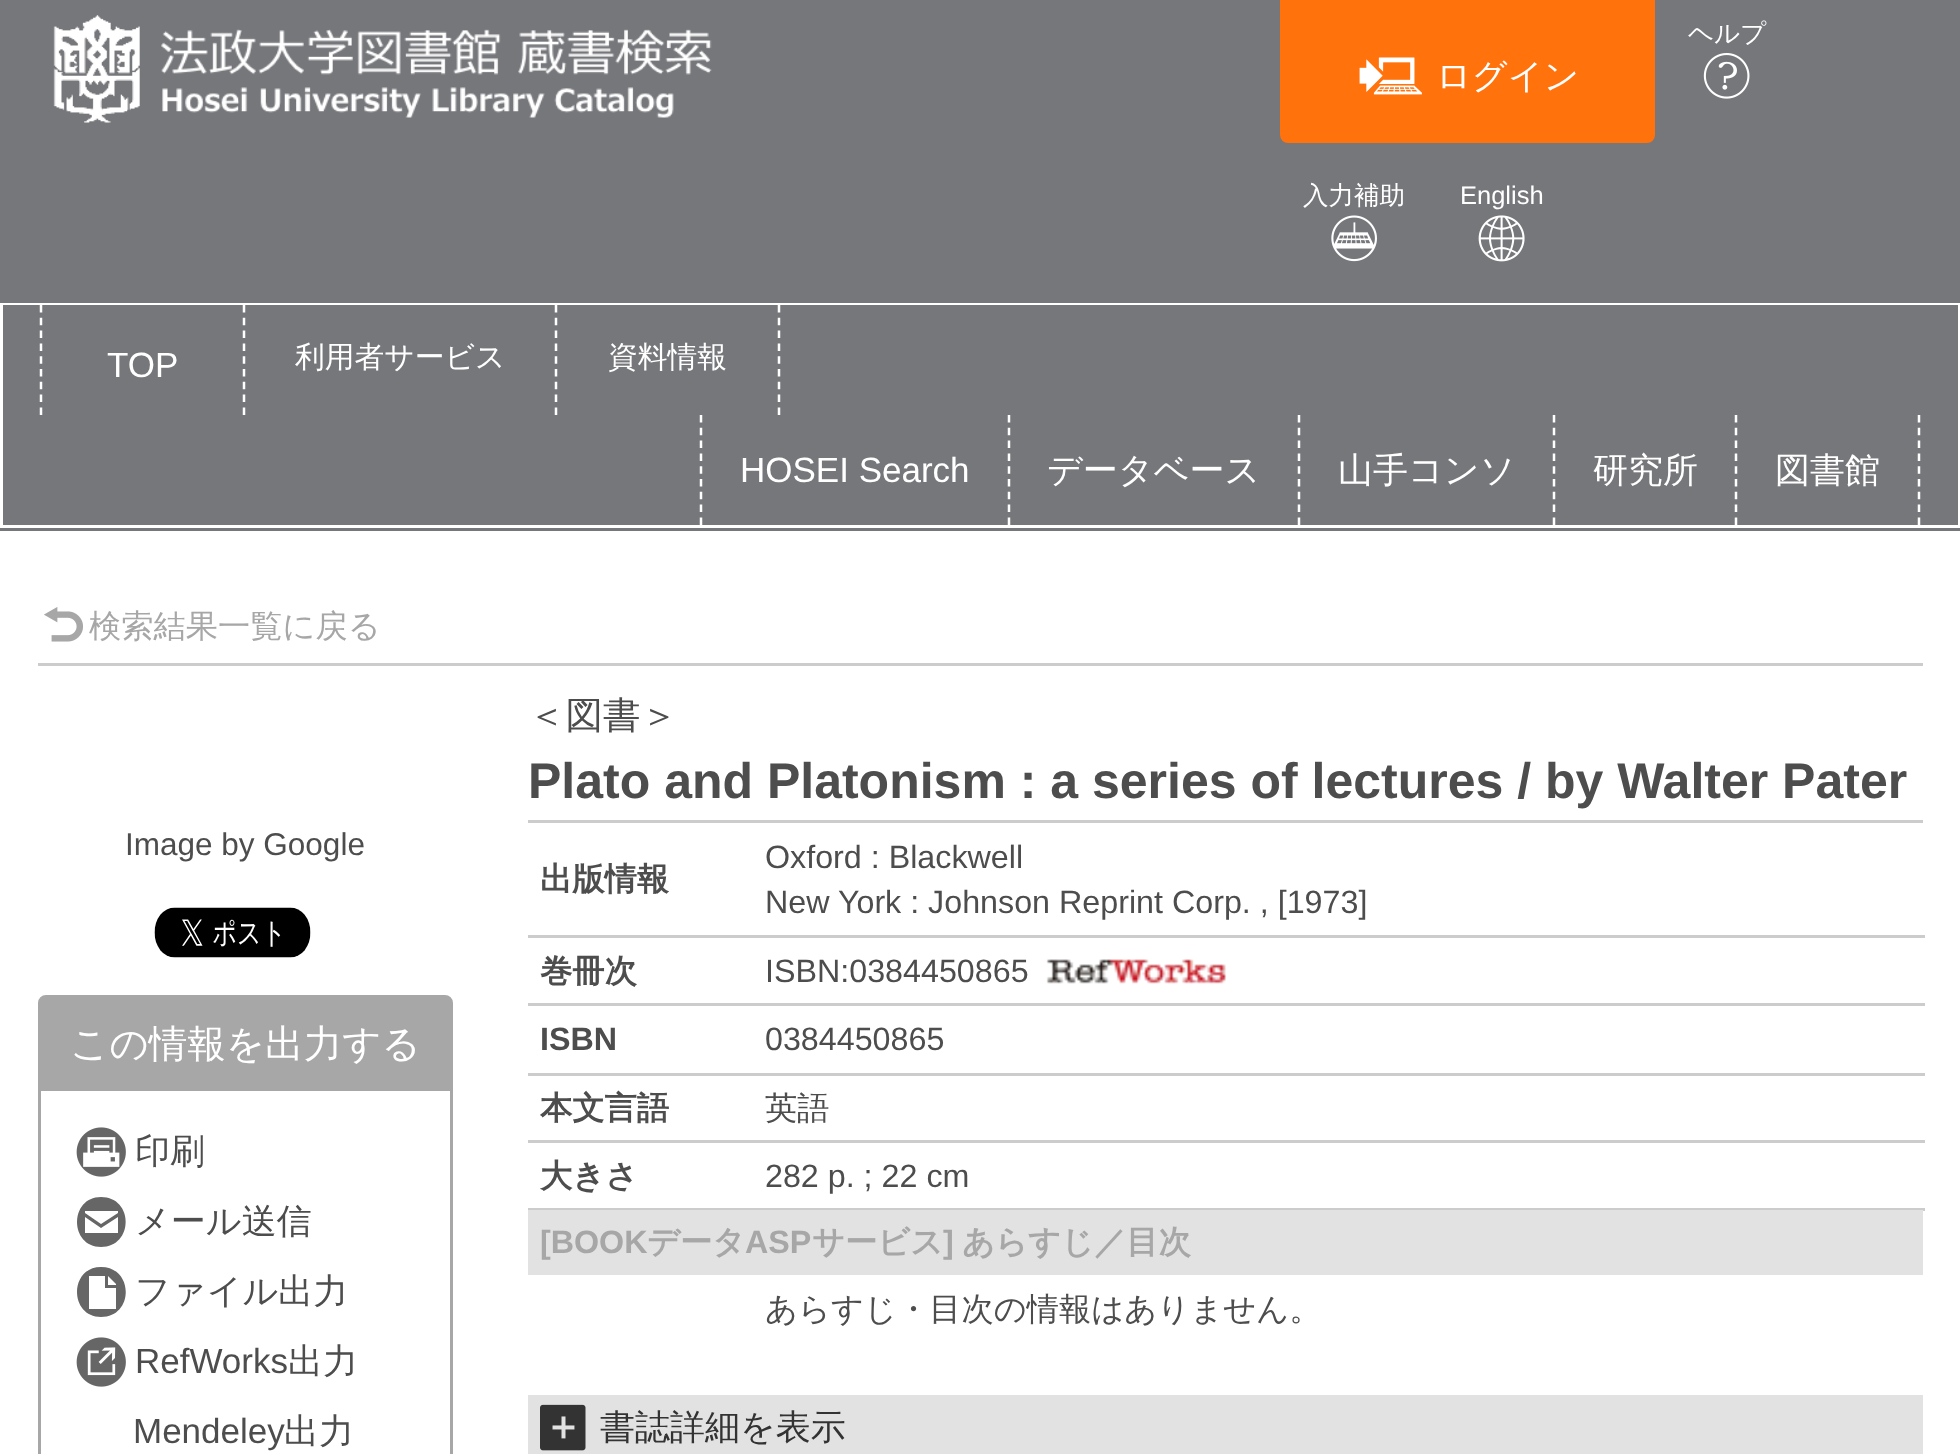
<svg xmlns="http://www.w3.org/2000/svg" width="1960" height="1454">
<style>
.a{font:500 25.5px WenQuanYi Zen Hei;fill:#fff}
.b{font:500 35px WenQuanYi Zen Hei;fill:#fff}
.c{font:25.5px Liberation Sans;fill:#fff}
.d{font:35px Liberation Sans;fill:#fff}
.e{font:500 29.75px WenQuanYi Zen Hei;fill:#fff}
.f{font:500 32.25px WenQuanYi Zen Hei;fill:#a7a7a7}
.g{font:31.5px Liberation Sans;fill:#4d4d4d}
.h{font:500 38.5px WenQuanYi Zen Hei;fill:#fff}
.i{font:500 35px WenQuanYi Zen Hei;fill:#4d4d4d}
.j{font:35px Liberation Sans;fill:#4d4d4d}
.k{font:500 37.5px WenQuanYi Zen Hei;fill:#4d4d4d}
.l{font:bold 50px Liberation Sans;fill:#4d4d4d}
.m{font:bold 32.25px WenQuanYi Zen Hei;fill:#4d4d4d}
.n{font:32.25px Liberation Sans;fill:#4d4d4d}
.o{font:bold 32.25px Liberation Sans;fill:#4d4d4d}
.p{font:500 32.25px WenQuanYi Zen Hei;fill:#4d4d4d}
.q{font:bold 32.25px Liberation Sans;fill:#a7a7a7}
.r{font:bold 32.25px WenQuanYi Zen Hei;fill:#a7a7a7}
.s{font:500 35px WenQuanYi Zen Hei;fill:#333}
</style>
<rect width="100%" height="100%" fill="#fff"/>
<path fill="#76777b" d="M0 0h1960v303H0z"/>
<image href="1.png" x="53" y="15" width="659" height="108"/>
<image href="2.png" x="1703" y="53" width="47" height="46"/>
<rect fill="#ff720c" stroke="#ff720c" stroke-width="3" x="1281.5" y="-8.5" width="372" height="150" rx="6.5"/>
<image href="3.png" x="1359" y="57" width="63" height="38"/>
<image href="4.png" x="1331" y="215" width="46" height="47"/>
<image href="5.png" x="1478" y="215" width="47" height="47"/>
<path fill="#76777b" d="M3 305h1955v220H3z"/>
<path fill="none" stroke="#fff" stroke-width="2.5" stroke-dasharray="7.5 5.3" d="M41 305v110"/>
<path fill="none" stroke="#fff" stroke-width="2.5" stroke-dasharray="7.5 5.3" d="M244 305v110"/>
<path fill="none" stroke="#fff" stroke-width="2.5" stroke-dasharray="7.5 5.3" d="M556 305v110"/>
<path fill="none" stroke="#fff" stroke-width="2.5" stroke-dasharray="7.5 5.3" d="M779 305v110"/>
<path fill="none" stroke="#fff" stroke-width="2.5" stroke-dasharray="7.5 5.3" d="M701 415v110"/>
<path fill="none" stroke="#fff" stroke-width="2.5" stroke-dasharray="7.5 5.3" d="M1009 415v110"/>
<path fill="none" stroke="#fff" stroke-width="2.5" stroke-dasharray="7.5 5.3" d="M1299 415v110"/>
<path fill="none" stroke="#fff" stroke-width="2.5" stroke-dasharray="7.5 5.3" d="M1554 415v110"/>
<path fill="none" stroke="#fff" stroke-width="2.5" stroke-dasharray="7.5 5.3" d="M1736 415v110"/>
<path fill="none" stroke="#fff" stroke-width="2.5" stroke-dasharray="7.5 5.3" d="M1919 415v110"/>
<path fill="#76777b" d="M0 528h1960v3H0z"/>
<path fill="#ccc" d="M38 663h1885v3H38z"/>
<image href="6.png" x="44" y="607" width="39" height="35"/>
<image href="7.png" x="154" y="907" width="157" height="51"/>
<rect fill="none" stroke="#a7a7a7" stroke-width="3" x="39.5" y="996.5" width="412" height="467" rx="6.5"/>
<path fill="#a7a7a7" d="M42.5 998h405c1.5 0 2.5 1 2.5 2.5v89.5h-410v-89.5c0-1.5 1-2.5 2.5-2.5z"/>
<path fill="#a7a7a7" d="M40 1090h410v1H40z"/>
<image href="8.png" x="76" y="1127" width="50" height="50"/>
<path fill="#666" d="M101 1197c-32 0-32 50 0 50c33 0 33-50 0-50zm17 14v2l-17 11l-16-11v-2zm-33 22v-16l16 11l17-11v16z"/>
<path fill="#666" d="M101 1267c-32 0-32 50 0 50c33 0 33-50 0-50zm15 18h-8v-9l8 8zm-27 24v-33h16v12h11v21z"/>
<image href="9.png" x="76" y="1337" width="50" height="50"/>
<path fill="#ccc" d="M528 820h1395v3H528z"/>
<path fill="#ccc" d="M528 935h1397v3H528z"/>
<path fill="#ccc" d="M528 1003h1397v3H528z"/>
<image href="10.png" x="1046" y="959" width="180" height="25"/>
<path fill="#ccc" d="M528 1073h1397v3H528z"/>
<path fill="#ccc" d="M528 1140h1397v3H528z"/>
<path fill="#ccc" d="M753 1208h1172v3H753z"/>
<path fill="#ccc" d="M528 1208h227v2H528z"/>
<path fill="#e2e2e2" d="M528 1210h1395v65H528z"/>
<path fill="#e2e2e2" d="M528 1395h1395v59H528z"/>
<image href="11.png" x="540" y="1404" width="46" height="47"/>
<text class="a" x="1688" y="42">ヘルプ</text>
<text class="b" x="1436" y="88">ログイン</text>
<text class="a" x="1303" y="204">入力補助</text>
<text class="c" x="1460" y="204">English</text>
<text class="d" x="107" y="377">TOP</text>
<text class="e" x="295" y="367">利用者サービス</text>
<text class="e" x="608" y="367">資料情報</text>
<text class="d" x="740" y="482">HOSEI Search</text>
<text class="b" x="1047" y="482">データベース</text>
<text class="b" x="1338" y="482">山手コンソ</text>
<text class="b" x="1593" y="482">研究所</text>
<text class="b" x="1775" y="482">図書館</text>
<text class="f" x="89" y="637">検索結果一覧に戻る</text>
<text class="g" x="125" y="855">Image by Google</text>
<text class="h" x="70" y="1057">この情報を出力する</text>
<text class="i" x="135" y="1163">印刷</text>
<text class="i" x="135" y="1233">メール送信</text>
<text class="i" x="135" y="1303">ファイル出力</text>
<text class="j" x="135" y="1373">RefWorks</text>
<text class="i" x="288" y="1373">出力</text>
<text class="j" x="133" y="1443">Mendeley</text>
<text class="i" x="284" y="1443">出力</text>
<text class="k" x="528" y="728">＜図書＞</text>
<text class="l" x="528" y="798">Plato and Platonism : a series of lectures / by Walter Pater</text>
<text class="m" x="540" y="890">出版情報</text>
<text class="n" x="765" y="868">Oxford : Blackwell</text>
<text class="n" x="765" y="913">New York : Johnson Reprint Corp. , [1973]</text>
<text class="m" x="540" y="982">巻冊次</text>
<text class="n" x="765" y="982">ISBN:0384450865</text>
<text class="o" x="540" y="1050">ISBN</text>
<text class="n" x="765" y="1050">0384450865</text>
<text class="m" x="540" y="1119">本文言語</text>
<text class="p" x="765" y="1119">英語</text>
<text class="m" x="540" y="1187">大きさ</text>
<text class="n" x="765" y="1187">282 p. ; 22 cm</text>
<text class="q" x="540" y="1253">[BOOK</text>
<text class="r" x="647" y="1253">データ</text>
<text class="q" x="745" y="1253">ASP</text>
<text class="r" x="812" y="1253">サービス</text>
<text class="q" x="943" y="1253">]</text>
<text class="r" x="962" y="1253">あらすじ／目次</text>
<text class="p" x="765" y="1320">あらすじ・目次の情報はありません。</text>
<text class="s" x="600" y="1439">書誌詳細を表示</text>
</svg>
